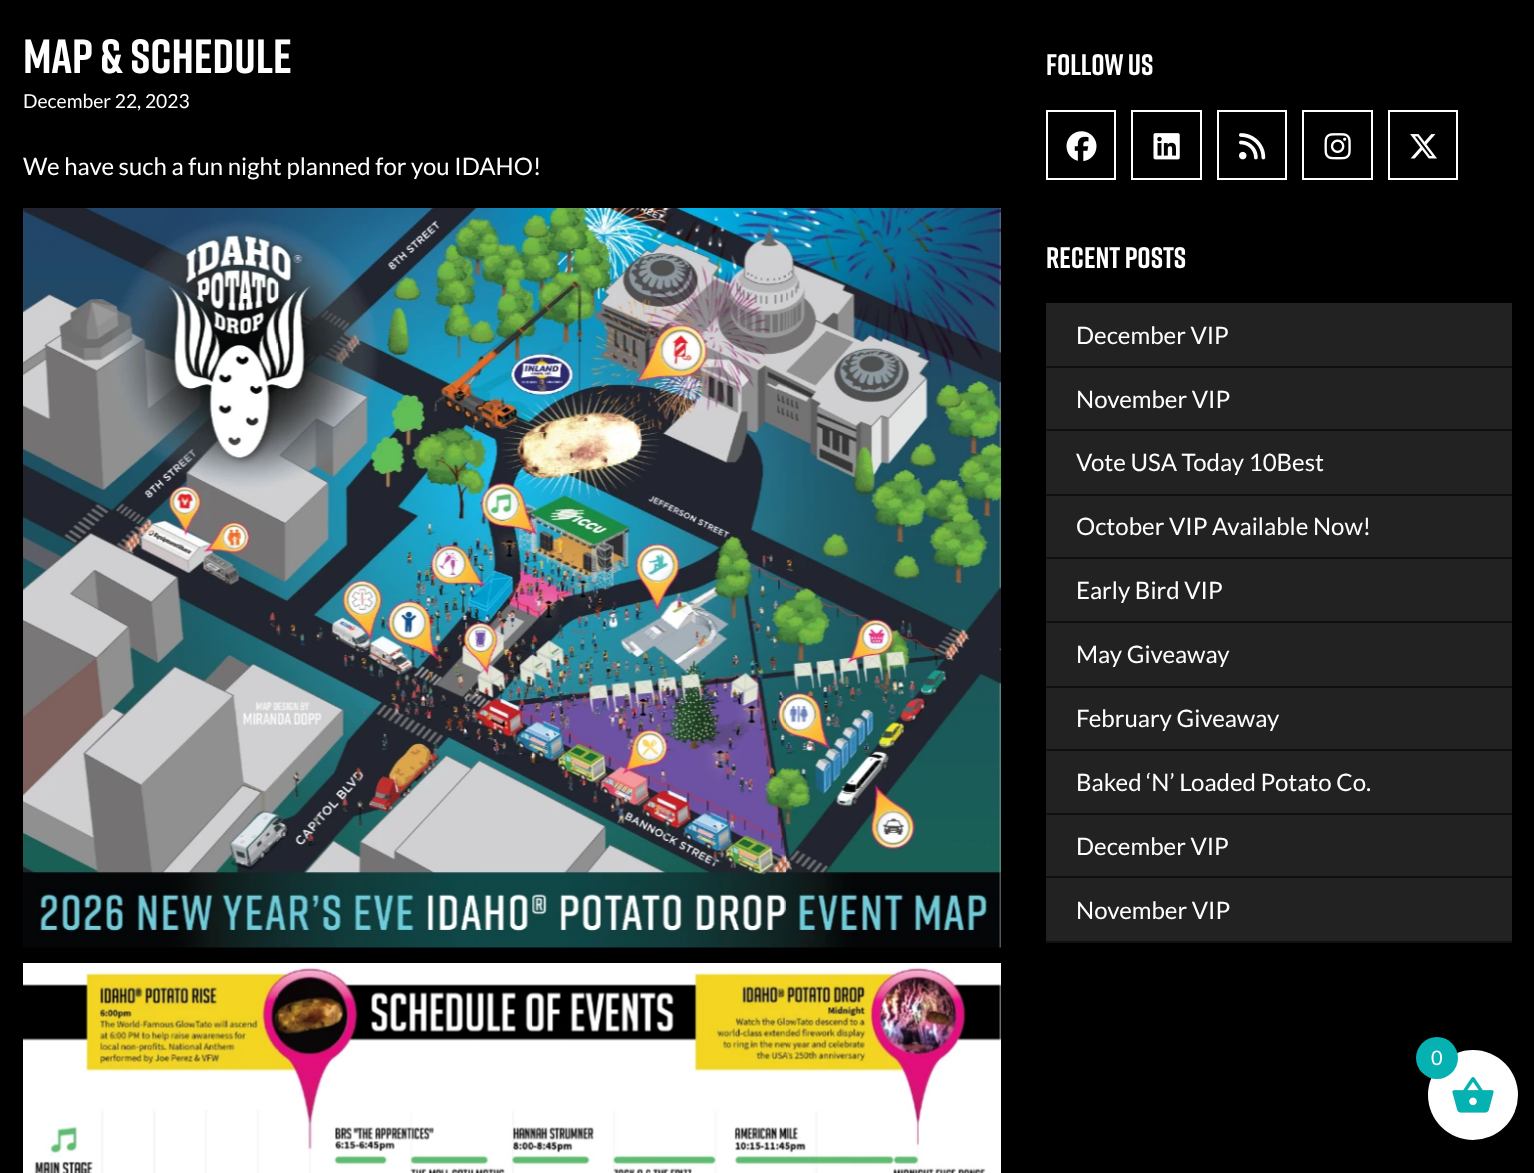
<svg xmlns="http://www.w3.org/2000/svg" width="1534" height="1173">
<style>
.a{font:bold 48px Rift;fill:#fff}
.b{font:19.25px Lato;fill:#fff}
.c{font:24px Lato;fill:#fff}
.d{font:bold 29.5px Rift;fill:#fff}
.e{font:20px Lato;fill:#fff}
</style>
<rect width="100%" height="100%" fill="#000"/>
<image href="1.png" x="23" y="208" width="978" height="740"/>
<image href="2.png" x="23" y="963" width="978" height="210"/>
<path fill="none" stroke="#fff" stroke-width="2" d="M1047 111h68v68H1047z"/>
<image href="3.png" x="1066" y="131" width="31" height="31"/>
<path fill="none" stroke="#fff" stroke-width="2" d="M1132 111h69v68H1132z"/>
<image href="4.png" x="1153" y="133" width="27" height="27"/>
<path fill="none" stroke="#fff" stroke-width="2" d="M1218 111h68v68H1218z"/>
<image href="5.png" x="1239" y="133" width="27" height="27"/>
<path fill="none" stroke="#fff" stroke-width="2" d="M1303 111h69v68H1303z"/>
<image href="6.png" x="1324" y="133" width="27" height="27"/>
<path fill="none" stroke="#fff" stroke-width="2" d="M1389 111h68v68H1389z"/>
<image href="7.png" x="1410" y="134" width="27" height="25"/>
<path fill="#222" d="M1046 303h466v638H1046z"/>
<path fill="#101010" d="M1046 366h466v2H1046z"/>
<path fill="#101010" d="M1046 429h466v2H1046z"/>
<path fill="#101010" d="M1046 494h466v2H1046z"/>
<path fill="#101010" d="M1046 557h466v2H1046z"/>
<path fill="#101010" d="M1046 621h466v2H1046z"/>
<path fill="#101010" d="M1046 686h466v2H1046z"/>
<path fill="#101010" d="M1046 749h466v2H1046z"/>
<path fill="#101010" d="M1046 813h466v2H1046z"/>
<path fill="#101010" d="M1046 876h466v2H1046z"/>
<path fill="#101010" d="M1046 941h466v2H1046z"/>
<circle fill="#fff" cx="1473" cy="1095" r="45"/>
<image href="8.png" x="1452" y="1077" width="42" height="36"/>
<circle fill="#06b1b1" cx="1437" cy="1058" r="21"/>
<text class="a" x="23" y="73">Map &amp; Schedule</text>
<text class="b" x="23" y="108">December 22, 2023</text>
<text class="c" x="23" y="175">We have such a fun night planned for you IDAHO!</text>
<text class="d" x="1046" y="75">FOLLOW US</text>
<text class="d" x="1046" y="268">RECENT POSTS</text>
<text class="c" x="1076" y="344">December VIP</text>
<text class="c" x="1076" y="408">November VIP</text>
<text class="c" x="1076" y="471">Vote USA Today 10Best</text>
<text class="c" x="1076" y="535">October VIP Available Now!</text>
<text class="c" x="1076" y="599">Early Bird VIP</text>
<text class="c" x="1076" y="663">May Giveaway</text>
<text class="c" x="1076" y="727">February Giveaway</text>
<text class="c" x="1076" y="791">Baked ‘N’ Loaded Potato Co.</text>
<text class="c" x="1076" y="855">December VIP</text>
<text class="c" x="1076" y="919">November VIP</text>
<text class="e" x="1431" y="1065">0</text>
</svg>
